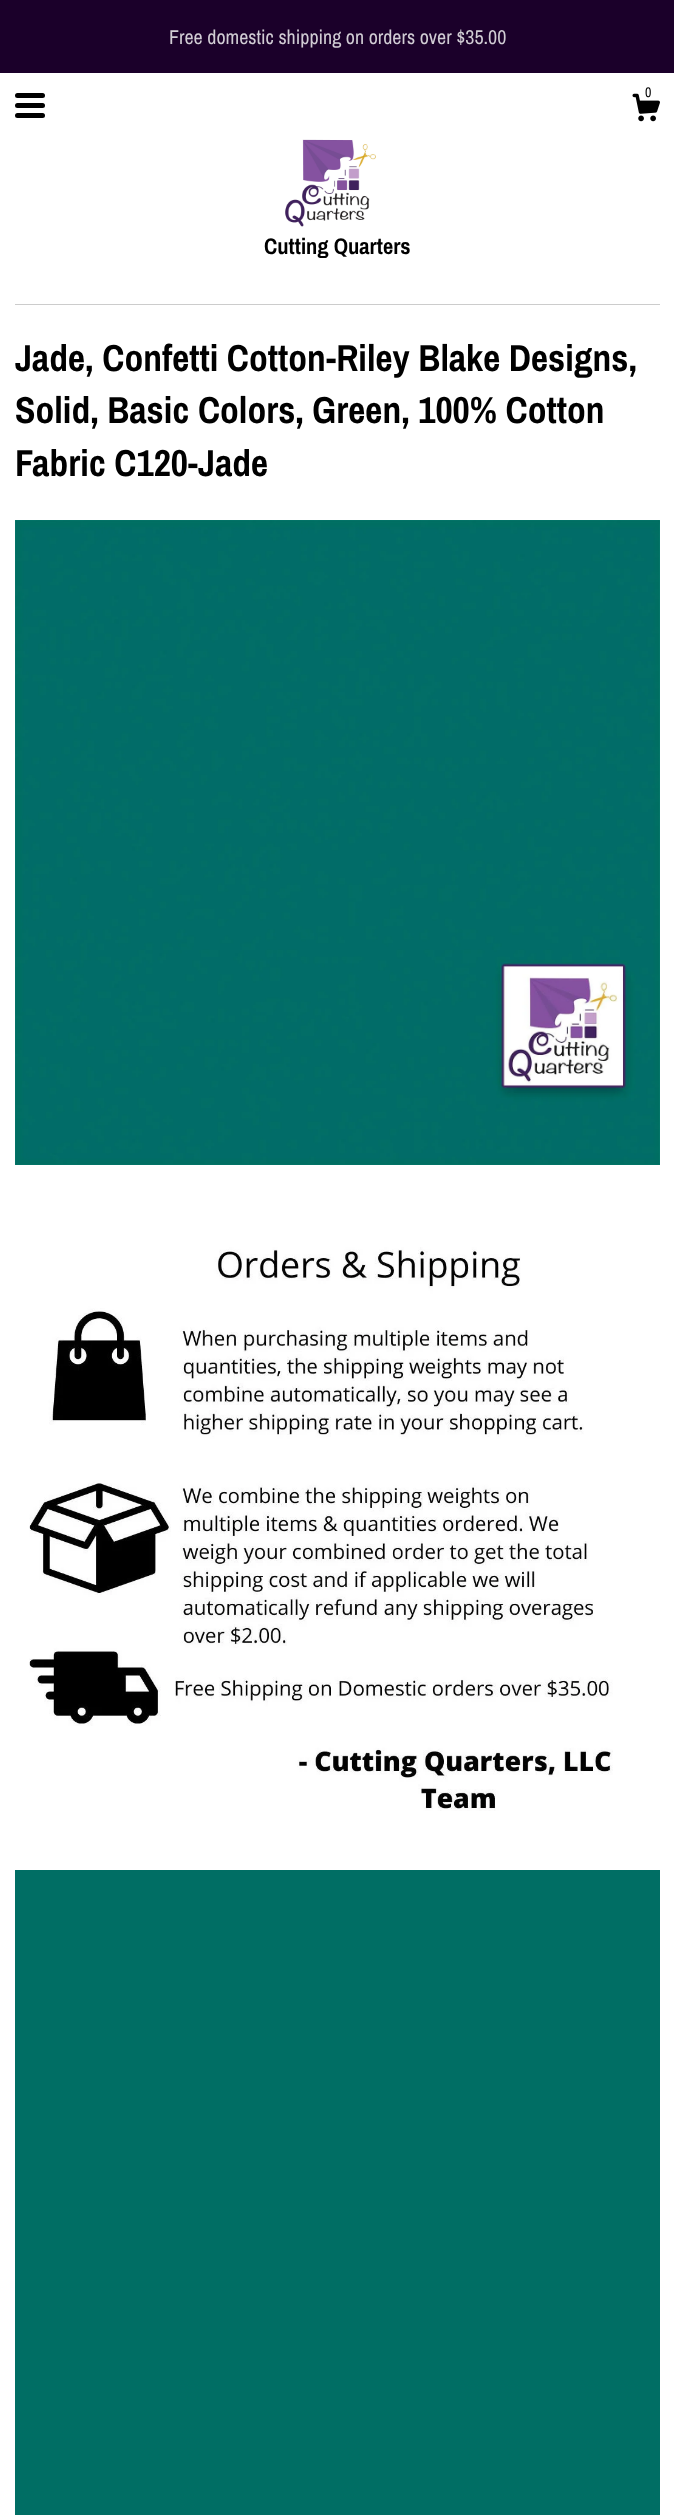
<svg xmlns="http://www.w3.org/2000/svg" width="674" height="2517">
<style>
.a{font:20px Archivo Narrow;fill:#d1ccd4}
.b{font:14px Archivo Narrow;fill:#000}
.c{font:bold 22.5px Archivo Narrow;fill:#000}
.d{font:bold 37.5px Archivo Narrow;fill:#000}
</style>
<rect width="100%" height="100%" fill="#fff"/>
<path fill="#1b002a" d="M0 0h674v73H0z"/>
<rect fill="#000" x="15" y="93" width="30" height="5" rx="2.5"/>
<rect fill="#000" x="15" y="103" width="30" height="5" rx="2.5"/>
<rect fill="#000" x="15" y="113" width="30" height="5" rx="2.5"/>
<image href="1.png" x="632" y="93" width="28" height="29"/>
<image href="2.png" x="285" y="139" width="91" height="88"/>
<path fill="#ccc" d="M15 304h645v1H15z"/>
<image href="3.png" x="15" y="520" width="645" height="645"/>
<image href="4.png" x="29" y="1247" width="584" height="564"/>
<path fill="#006e64" d="M15 1870h645v645H15z"/>
<text class="a" x="169" y="44">Free domestic shipping on orders over $35.00</text>
<text class="b" x="645" y="97">0</text>
<text class="c" x="264" y="254">Cutting Quarters</text>
<text class="d" x="15" y="371">Jade, Confetti Cotton-Riley Blake Designs,</text>
<text class="d" x="15" y="423">Solid, Basic Colors, Green, 100% Cotton</text>
<text class="d" x="15" y="476">Fabric C120-Jade</text>
</svg>
